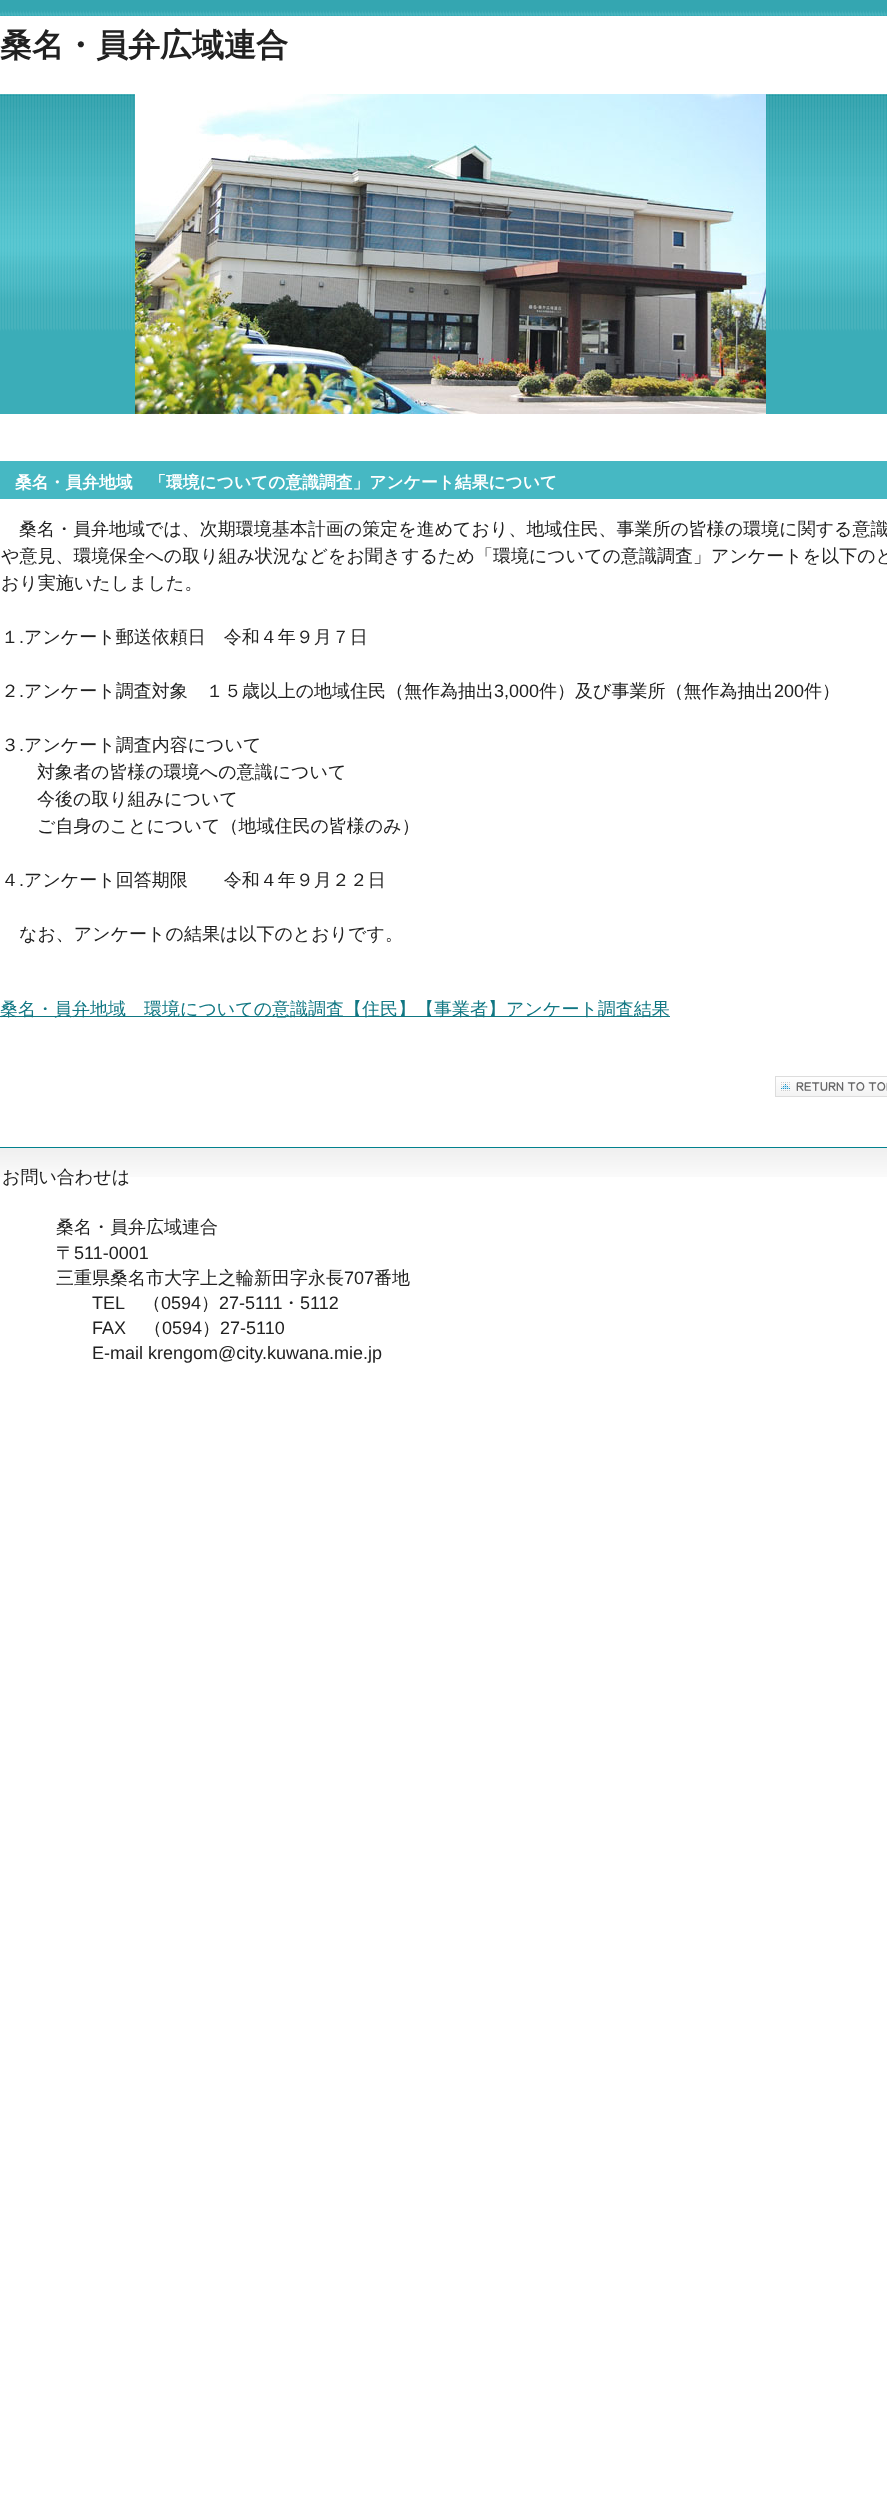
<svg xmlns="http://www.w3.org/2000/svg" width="887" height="2501">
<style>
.a{font:bold 32px WenQuanYi Zen Hei;fill:#212121}
.b{font:bold 16.8px WenQuanYi Zen Hei;fill:#fff}
.c{font:500 18px WenQuanYi Zen Hei;fill:#212121}
.d{font:18px Liberation Sans;fill:#212121}
.e{font:500 18px WenQuanYi Zen Hei;fill:#117783}
</style>
<rect width="100%" height="100%" fill="#fff"/>
<image href="1.png" x="0" y="0" width="887" height="414"/>
<image href="2.png" x="0" y="1147" width="887" height="30"/>
<image href="3.png" x="135" y="94" width="631" height="320"/>
<path fill="#46b8c3" d="M0 461h887v38H0z"/>
<path fill="#117783" d="M0 1016h670v1H0z"/>
<image href="4.png" x="775" y="1076" width="112" height="21"/>
<text class="a" x="0" y="56">桑名・員弁広域連合</text>
<text class="b" x="15" y="488">桑名・員弁地域　「環境についての意識調査」アンケート結果について</text>
<text class="c" x="19" y="535">桑名・員弁地域では、次期環境基本計画の策定を進めており、地域住民、事業所の皆様の環境に関する意識</text>
<text class="c" x="1" y="562">や意見、環境保全への取り組み状況などをお聞きするため「環境についての意識調査」アンケートを以下のと</text>
<text class="c" x="1" y="589">おり実施いたしました。</text>
<text class="c" x="1" y="643">１</text>
<text class="d" x="19" y="643">.</text>
<text class="c" x="24" y="643">アンケート郵送依頼日　令和４年９月７日</text>
<text class="c" x="1" y="697">２</text>
<text class="d" x="19" y="697">.</text>
<text class="c" x="24" y="697">アンケート調査対象　１５歳以上の地域住民（無作為抽出</text>
<text class="d" x="494" y="697">3,000</text>
<text class="c" x="539" y="697">件）及び事業所（無作為抽出</text>
<text class="d" x="774" y="697">200</text>
<text class="c" x="804" y="697">件）</text>
<text class="c" x="1" y="751">３</text>
<text class="d" x="19" y="751">.</text>
<text class="c" x="24" y="751">アンケート調査内容について</text>
<text class="c" x="37" y="778">対象者の皆様の環境への意識について</text>
<text class="c" x="37" y="805">今後の取り組みについて</text>
<text class="c" x="37" y="832">ご自身のことについて（地域住民の皆様のみ）</text>
<text class="c" x="1" y="886">４</text>
<text class="d" x="19" y="886">.</text>
<text class="c" x="24" y="886">アンケート回答期限　　令和４年９月２２日</text>
<text class="c" x="19" y="940">なお、アンケートの結果は以下のとおりです。</text>
<text class="e" x="0" y="1015">桑名・員弁地域　環境についての意識調査【住民】【事業者】アンケート調査結果</text>
<text class="c" x="2" y="1183">お問い合わせは</text>
<text class="c" x="56" y="1233">桑名・員弁広域連合</text>
<text class="c" x="56" y="1259">〒</text>
<text class="d" x="74" y="1259">511-0001</text>
<text class="c" x="56" y="1284">三重県桑名市大字上之輪新田字永長</text>
<text class="d" x="344" y="1284">707</text>
<text class="c" x="374" y="1284">番地</text>
<text class="d" x="92" y="1309">TEL</text>
<text class="c" x="143" y="1309">（</text>
<text class="d" x="161" y="1309">0594</text>
<text class="c" x="201" y="1309">）</text>
<text class="d" x="219" y="1309">27-5111</text>
<text class="c" x="282" y="1309">・</text>
<text class="d" x="300" y="1309">5112</text>
<text class="d" x="92" y="1334">FAX</text>
<text class="c" x="144" y="1334">（</text>
<text class="d" x="162" y="1334">0594</text>
<text class="c" x="202" y="1334">）</text>
<text class="d" x="220" y="1334">27-5110</text>
<text class="d" x="92" y="1359">E-mail krengom@city.kuwana.mie.jp</text>
</svg>
